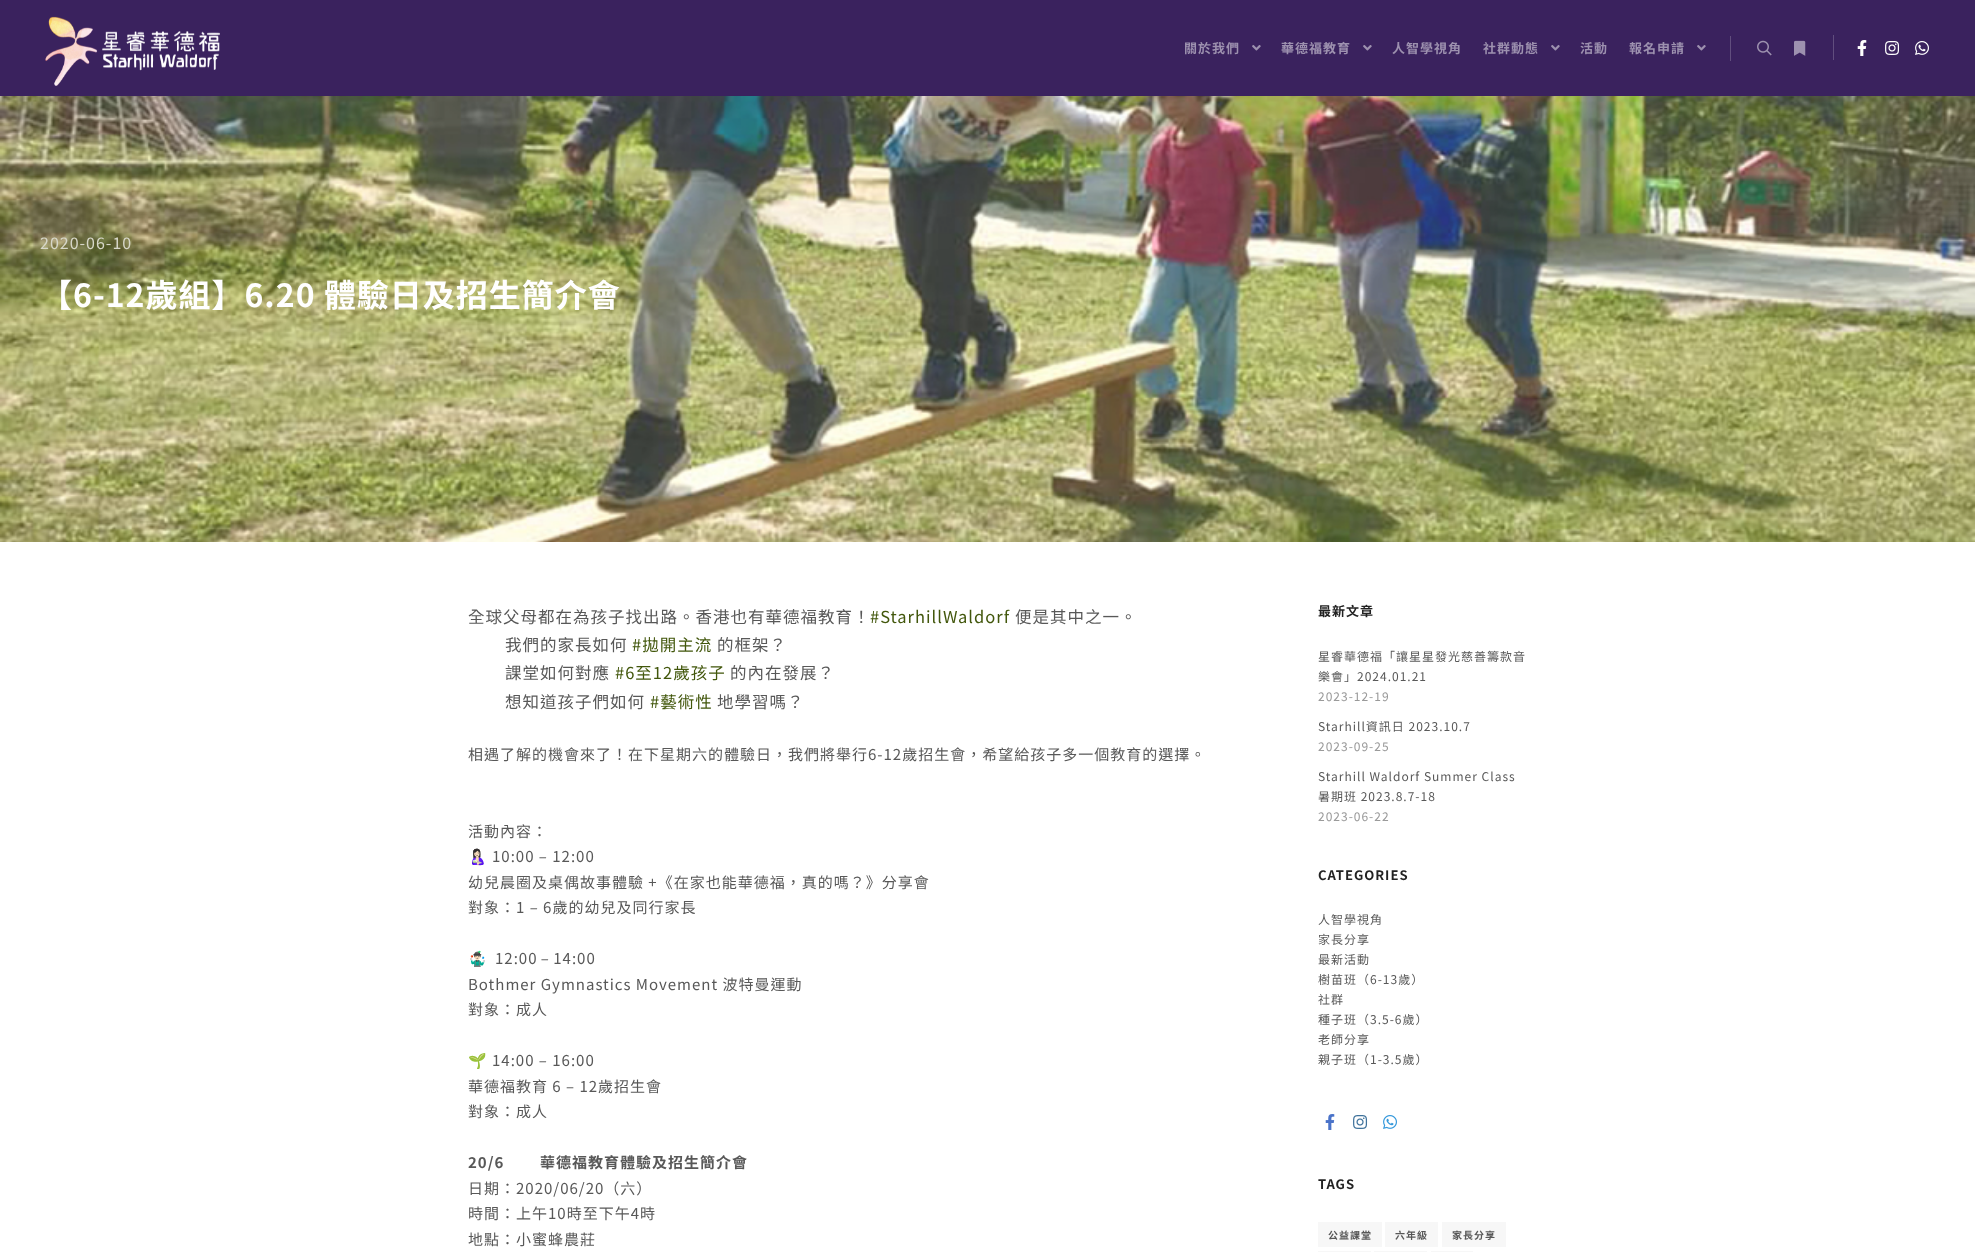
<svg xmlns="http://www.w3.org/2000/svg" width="1975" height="1252">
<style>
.a{font:bold 13px Noto Sans HK;letter-spacing:1px;fill:#9d91af}
.b{font:16px Noto Sans HK;letter-spacing:1px;fill:#d7d7c9}
.c{font:bold 32px Noto Sans HK;letter-spacing:1px;fill:#fff}
.d{font:16.5px Noto Sans HK;letter-spacing:1px;fill:#585858}
.e{font:16.5px Noto Sans HK;letter-spacing:1px;fill:#42570c}
.f{font:15px Noto Sans HK;letter-spacing:1px;fill:#585858}
.g{font:15px Noto Color Emoji;letter-spacing:1px;fill:#585858}
.h{font:bold 15px Noto Sans HK;letter-spacing:1px;fill:#585858}
.i{font:bold 13px Noto Sans HK;letter-spacing:1px;fill:#222}
.j{font:12px Noto Sans HK;letter-spacing:1px;fill:#585858}
.k{font:12px Noto Sans HK;letter-spacing:1px;fill:#999}
.l{font:bold 10px Noto Sans HK;letter-spacing:1px;fill:#585858}
</style>
<rect width="100%" height="100%" fill="#fff"/>
<path fill="#3a225e" d="M0 0h1975v96H0z"/>
<image href="1.png" x="45" y="16" width="175" height="70"/>
<image href="2.png" x="1252" y="45" width="9" height="6"/>
<image href="2.png" x="1363" y="45" width="9" height="6"/>
<image href="2.png" x="1551" y="45" width="9" height="6"/>
<image href="2.png" x="1697" y="45" width="9" height="6"/>
<path fill="#614e7e" d="M1730 36h1v25H1730z"/>
<image href="3.png" x="1757" y="40" width="15" height="16"/>
<image href="4.png" x="1794" y="40" width="12" height="16"/>
<path fill="#614e7e" d="M1833 35h1v25H1833z"/>
<image href="5.png" x="1857" y="40" width="10" height="16"/>
<image href="6.png" x="1885" y="41" width="15" height="14"/>
<image href="7.png" x="1915" y="41" width="14" height="14"/>
<image href="8.png" x="0" y="96" width="1975" height="446"/>
<image href="9.png" x="1325" y="1114" width="10" height="16"/>
<image href="10.png" x="1353" y="1115" width="15" height="14"/>
<image href="11.png" x="1383" y="1115" width="14" height="14"/>
<path fill="#f7f7f7" d="M1318 1222h64v25H1318z"/>
<path fill="#f7f7f7" d="M1385 1222h53v25H1385z"/>
<path fill="#f7f7f7" d="M1442 1222h64v25H1442z"/>
<path fill="#f7f7f7" d="M1318 1251h53v1H1318z"/>
<path fill="#f7f7f7" d="M1374 1251h53v1H1374z"/>
<path fill="#f7f7f7" d="M1431 1251h42v1H1431z"/>
<text class="a" x="1184" y="53">關於我們</text>
<text class="a" x="1281" y="53">華德福教育</text>
<text class="a" x="1392" y="53">人智學視角</text>
<text class="a" x="1483" y="53">社群動態</text>
<text class="a" x="1580" y="53">活動</text>
<text class="a" x="1629" y="53">報名申請</text>
<text class="b" x="40" y="249">2020-06-10</text>
<text class="c" x="40" y="307">【6-12歲組】6.20 體驗日及招生簡介會</text>
<text class="d" x="468" y="623">全球父母都在為孩子找出路。香港也有華德福教育！</text>
<text class="e" x="870" y="623">#StarhillWaldorf</text>
<text class="d" x="1015" y="623">便是其中之一。</text>
<text class="d" x="505" y="651">我們的家長如何</text>
<text class="e" x="632" y="651">#拋開主流</text>
<text class="d" x="717" y="651">的框架？</text>
<text class="d" x="505" y="679">課堂如何對應</text>
<text class="e" x="615" y="679">#6至12歲孩子</text>
<text class="d" x="730" y="679">的內在發展？</text>
<text class="d" x="505" y="708">想知道孩子們如何</text>
<text class="e" x="650" y="708">#藝術性</text>
<text class="d" x="717" y="708">地學習嗎？</text>
<text class="f" x="468" y="760">相遇了解的機會來了！在下星期六的體驗日，我們將舉行6-12歲招生會，希望給孩子多一個教育的選擇。</text>
<text class="f" x="468" y="837">活動內容：</text>
<text class="g" x="468" y="862">🤱🏻</text>
<text class="f" x="492" y="862">10:00 – 12:00</text>
<text class="f" x="468" y="888">幼兒晨圈及桌偶故事體驗 +《在家也能華德福，真的嗎？》分享會</text>
<text class="f" x="468" y="913">對象：1 – 6歲的幼兒及同行家長</text>
<text class="g" x="468" y="964">🤹🏻‍♂️</text>
<text class="f" x="495" y="964" word-spacing="-1">12:00 – 14:00</text>
<text class="f" x="468" y="990">Bothmer Gymnastics Movement 波特曼運動</text>
<text class="f" x="468" y="1015">對象：成人</text>
<text class="g" x="468" y="1066">🌱</text>
<text class="f" x="492" y="1066">14:00 – 16:00</text>
<text class="f" x="468" y="1092">華德福教育 6 – 12歲招生會</text>
<text class="f" x="468" y="1117">對象：成人</text>
<text class="h" x="468" y="1168">20/6</text>
<text class="h" x="540" y="1168">華德福教育體驗及招生簡介會</text>
<text class="f" x="468" y="1194">日期：2020/06/20（六）</text>
<text class="f" x="468" y="1219">時間：上午10時至下午4時</text>
<text class="f" x="468" y="1245">地點：小蜜蜂農莊</text>
<text class="i" x="1318" y="616">最新文章</text>
<text class="j" x="1318" y="661">星睿華德福「讓星星發光慈善籌款音</text>
<text class="j" x="1318" y="681">樂會」2024.01.21</text>
<text class="k" x="1318" y="701">2023-12-19</text>
<text class="j" x="1318" y="731">Starhill資訊日 2023.10.7</text>
<text class="k" x="1318" y="751">2023-09-25</text>
<text class="j" x="1318" y="781">Starhill Waldorf Summer Class</text>
<text class="j" x="1318" y="801">暑期班 2023.8.7-18</text>
<text class="k" x="1318" y="821">2023-06-22</text>
<text class="i" x="1318" y="880">CATEGORIES</text>
<text class="j" x="1318" y="924">人智學視角</text>
<text class="j" x="1318" y="944">家長分享</text>
<text class="j" x="1318" y="964">最新活動</text>
<text class="j" x="1318" y="984">樹苗班（6-13歲）</text>
<text class="j" x="1318" y="1004">社群</text>
<text class="j" x="1318" y="1024">種子班（3.5-6歲）</text>
<text class="j" x="1318" y="1044">老師分享</text>
<text class="j" x="1318" y="1064">親子班（1-3.5歲）</text>
<text class="i" x="1318" y="1189">TAGS</text>
<text class="l" x="1328" y="1239">公益課堂</text>
<text class="l" x="1395" y="1239">六年級</text>
<text class="l" x="1452" y="1239">家長分享</text>
</svg>
